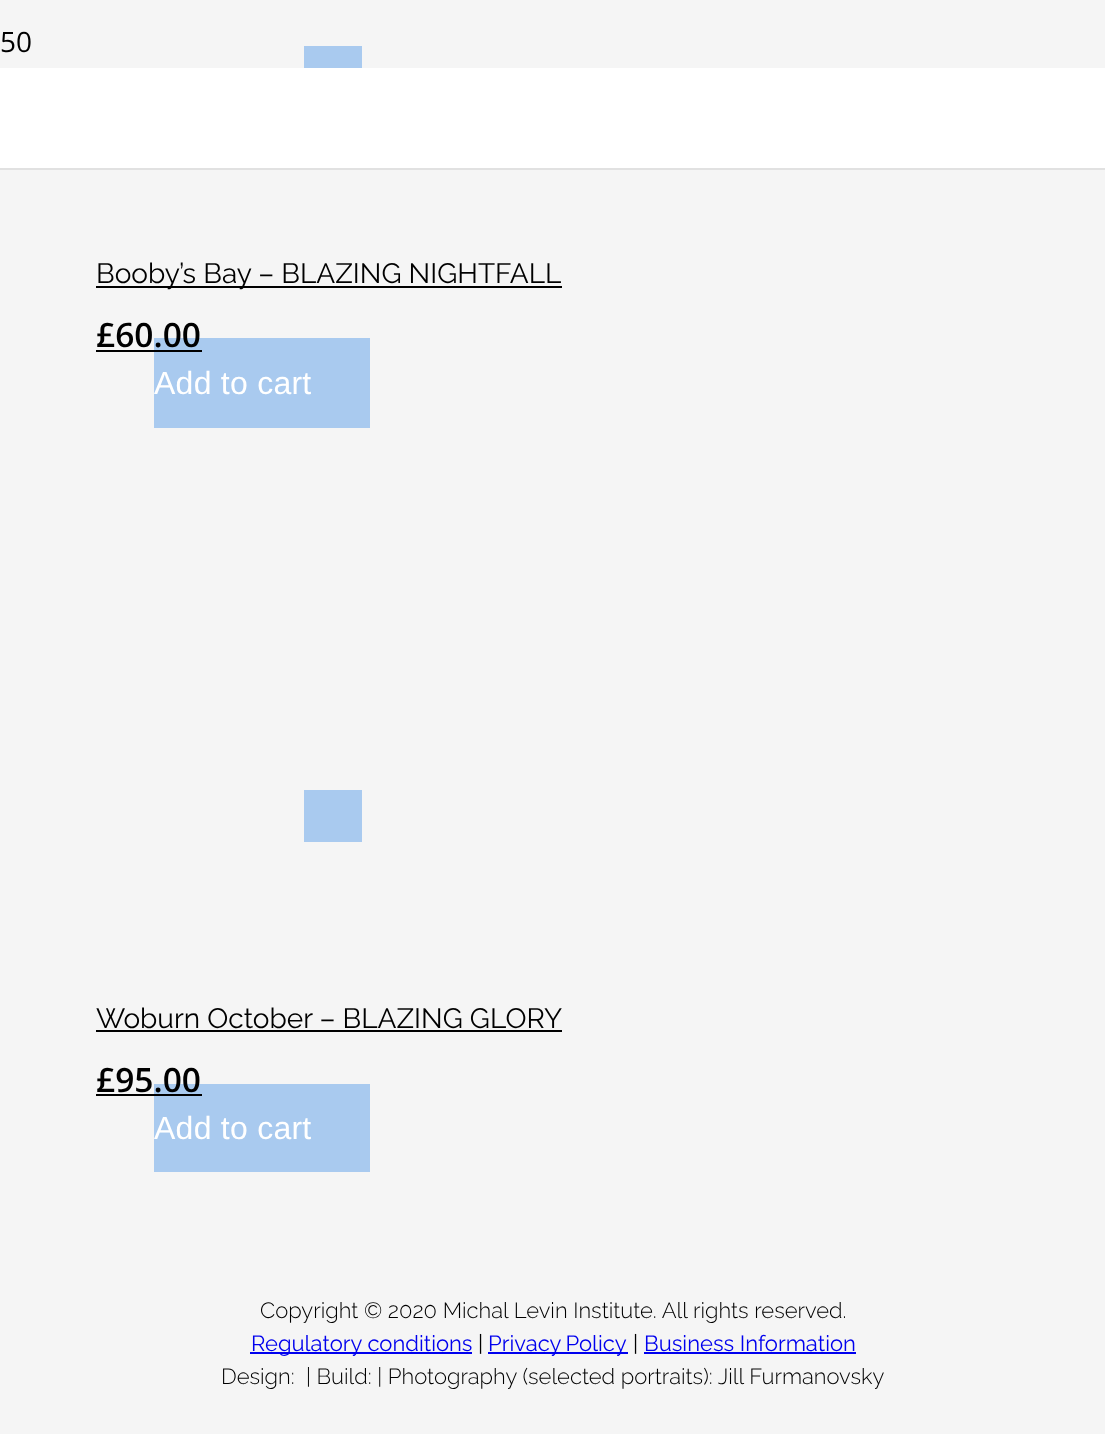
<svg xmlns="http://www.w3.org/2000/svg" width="1105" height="1434">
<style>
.a{font:28px Open Sans;fill:#000}
.b{font:28px Raleway;fill:#000}
.c{font:600 33.5px Open Sans;fill:#000}
.d{font:32px Liberation Sans;letter-spacing:0.25px;fill:#fff}
.e{font:300 22px Raleway;fill:#000}
.f{font:22px Raleway;fill:#00e}
.g{font:22px Raleway;fill:#000}
</style>
<rect width="100%" height="100%" fill="#f5f5f5"/>
<path fill="#e1e1e1" d="M0 168h1105v2H0z"/>
<path fill="#fff" d="M0 68h1105v100H0z"/>
<path fill="#000" d="M96 286h466v2H96z"/>
<path fill="#a9caef" d="M154 338h216v90H154z"/>
<path fill="#000" d="M96 350h106v2H96z"/>
<path fill="#a9caef" d="M304 46h58v22H304z"/>
<path fill="#000" d="M96 1030h466v2H96z"/>
<path fill="#a9caef" d="M154 1084h216v88H154z"/>
<path fill="#000" d="M96 1094h106v2H96z"/>
<path fill="#a9caef" d="M304 790h58v52H304z"/>
<path fill="#00e" d="M250 1352h222v2H250z"/>
<path fill="#00e" d="M488 1352h140v2H488z"/>
<path fill="#00e" d="M644 1352h212v2H644z"/>
<text class="a" x="0" y="52">50</text>
<text class="b" x="96" y="283">Booby’s Bay – BLAZING NIGHTFALL</text>
<text class="c" x="96" y="347">£60.00</text>
<text class="d" x="154" y="394">Add to cart</text>
<text class="b" x="96" y="1028">Woburn October – BLAZING GLORY</text>
<text class="c" x="96" y="1092">£95.00</text>
<text class="d" x="154" y="1139">Add to cart</text>
<text class="e" x="260" y="1318">Copyright © 2020 Michal Levin Institute. All rights reserved.</text>
<text class="f" x="251" y="1351">Regulatory conditions</text>
<text class="g" x="478" y="1351">|</text>
<text class="f" x="488" y="1351" word-spacing="-1">Privacy Policy</text>
<text class="g" x="633" y="1351">|</text>
<text class="f" x="644" y="1351">Business Information</text>
<text class="e" xml:space="preserve" x="221" y="1384">Design:  | Build: | Photography (selected portraits): Jill Furmanovsky</text>
</svg>
